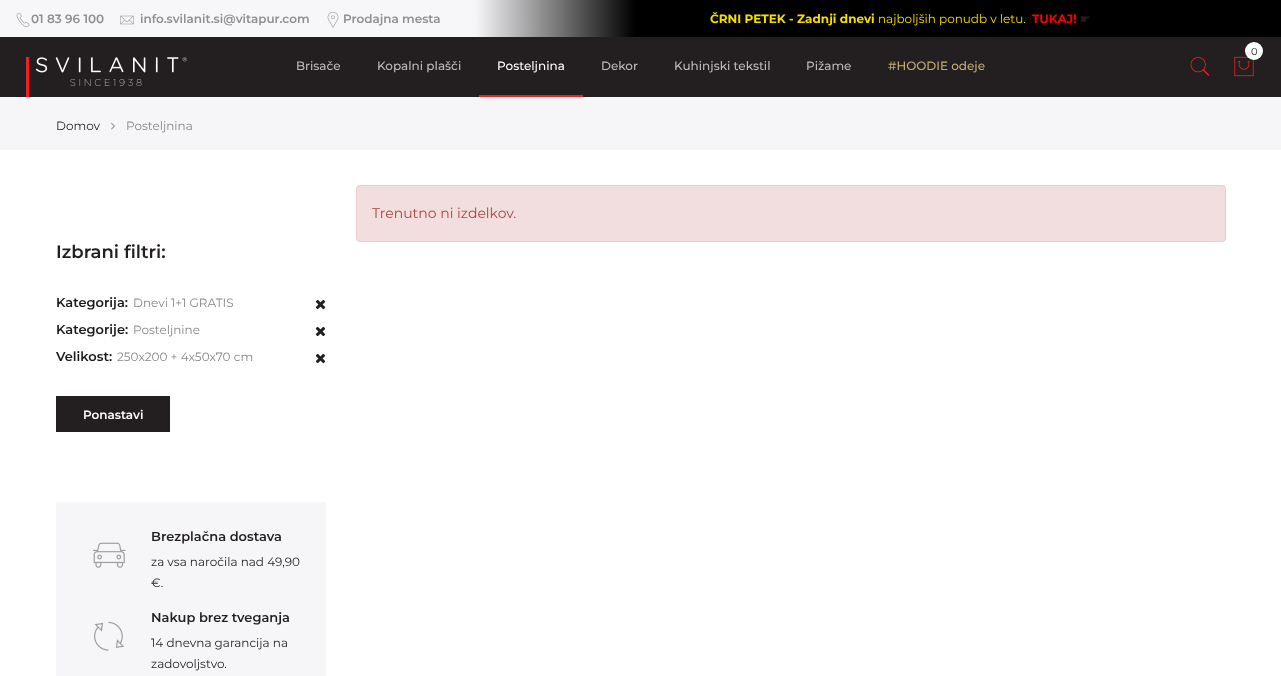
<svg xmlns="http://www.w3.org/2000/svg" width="1281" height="676">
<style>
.a{font:600 12px Montserrat;fill:#8d8f92}
.b{font:bold 12px Montserrat;fill:#f4de00}
.c{font:12px Montserrat;fill:#f4de00}
.d{font:bold 12px Montserrat;fill:#f00}
.e{font:12px DejaVu Sans;fill:#231f20}
.f{font:10px Montserrat;fill:#231f20}
.g{font:500 12px Montserrat;fill:#bdbcbc}
.h{font:500 12px Montserrat;fill:#fff}
.i{font:500 12px Montserrat;fill:#c3ad74}
.j{font:12px Montserrat;fill:#231f20}
.k{font:12px Montserrat;fill:#878787}
.l{font:14px Montserrat;fill:#a94442}
.m{font:600 18px Montserrat;fill:#231f20}
.n{font:600 13px Montserrat;fill:#1a1a1a}
.o{font:600 12px Montserrat;fill:#fff}
.p{font:600 13px Montserrat;fill:#231f20}
</style>
<defs>
<linearGradient id="g1" gradientUnits="userSpaceOnUse" x1="475" y1="19" x2="635" y2="18"><stop offset="0" stop-color="#f7f7f9"/><stop offset="1" stop-color="#000"/></linearGradient>
</defs>
<rect width="100%" height="100%" fill="#fff"/>
<path fill="#f7f7f9" d="M0 0h475v37H0z"/>
<image href="1.png" x="16" y="12" width="14" height="16"/>
<image href="2.png" x="120" y="15" width="14" height="10"/>
<image href="3.png" x="327" y="12" width="12" height="16"/>
<path fill="#000" d="M635 0h646v37H635z"/>
<path fill="url(#g1)" d="M475 0h160v37H475z"/>
<path fill="#231f20" d="M0 37h1281v60H0z"/>
<image href="4.png" x="26" y="57" width="161" height="40"/>
<image href="5.png" x="1234" y="56" width="20" height="21"/>
<circle fill="#fff" cx="1254" cy="51" r="9"/>
<image href="6.png" x="1190" y="57" width="20" height="19"/>
<path fill="#ed2124" d="M479 95h104v2H479z"/>
<path fill="#f6f6f8" d="M0 97h1281v53H0z"/>
<image href="7.png" x="111" y="122" width="4" height="8"/>
<rect fill="#f2dede" stroke="#ebccd1" x="356.5" y="185.5" width="869" height="56" rx="3.5"/>
<image href="8.png" x="315" y="299" width="11" height="11"/>
<image href="8.png" x="315" y="326" width="11" height="11"/>
<image href="8.png" x="315" y="353" width="11" height="11"/>
<path fill="#231f20" stroke="#231f20" stroke-width="2" d="M57 397h112v34H57z"/>
<path fill="#f6f6f8" d="M56 502h270v174H56z"/>
<image href="9.png" x="93" y="542" width="33" height="26"/>
<image href="10.png" x="94" y="621" width="31" height="30"/>
<text class="a" x="31" y="23">01 83 96 100</text>
<text class="a" x="140" y="23">info.svilanit.si@vitapur.com</text>
<text class="a" x="343" y="23">Prodajna mesta</text>
<text class="b" x="710" y="23">ČRNI PETEK - Zadnji dnevi</text>
<text class="c" x="878" y="23">najboljših ponudb v letu.</text>
<text class="d" x="1032" y="23">TUKAJ!</text>
<text class="e" x="1080" y="23">☛</text>
<text class="f" x="1251" y="55">0</text>
<text class="g" x="296" y="70">Brisače</text>
<text class="g" x="377" y="70">Kopalni plašči</text>
<text class="h" x="497" y="70">Posteljnina</text>
<text class="g" x="601" y="70">Dekor</text>
<text class="g" x="674" y="70">Kuhinjski tekstil</text>
<text class="g" x="806" y="70">Pižame</text>
<text class="i" x="888" y="70">#HOODIE odeje</text>
<text class="j" x="56" y="130">Domov</text>
<text class="k" x="126" y="130">Posteljnina</text>
<text class="l" x="372" y="218">Trenutno ni izdelkov.</text>
<text class="m" x="56" y="258">Izbrani filtri:</text>
<text class="n" x="56" y="307">Kategorija:</text>
<text class="k" x="133" y="307">Dnevi 1+1 GRATIS</text>
<text class="n" x="56" y="334">Kategorije:</text>
<text class="k" x="133" y="334">Posteljnine</text>
<text class="n" x="56" y="361">Velikost:</text>
<text class="k" x="117" y="361">250x200 + 4x50x70 cm</text>
<text class="o" x="83" y="419">Ponastavi</text>
<text class="p" x="151" y="541">Brezplačna dostava</text>
<text class="j" x="151" y="566">za vsa naročila nad 49,90</text>
<text class="j" x="151" y="587">€.</text>
<text class="p" x="151" y="622">Nakup brez tveganja</text>
<text class="j" x="151" y="647">14 dnevna garancija na</text>
<text class="j" x="151" y="668">zadovoljstvo.</text>
</svg>
